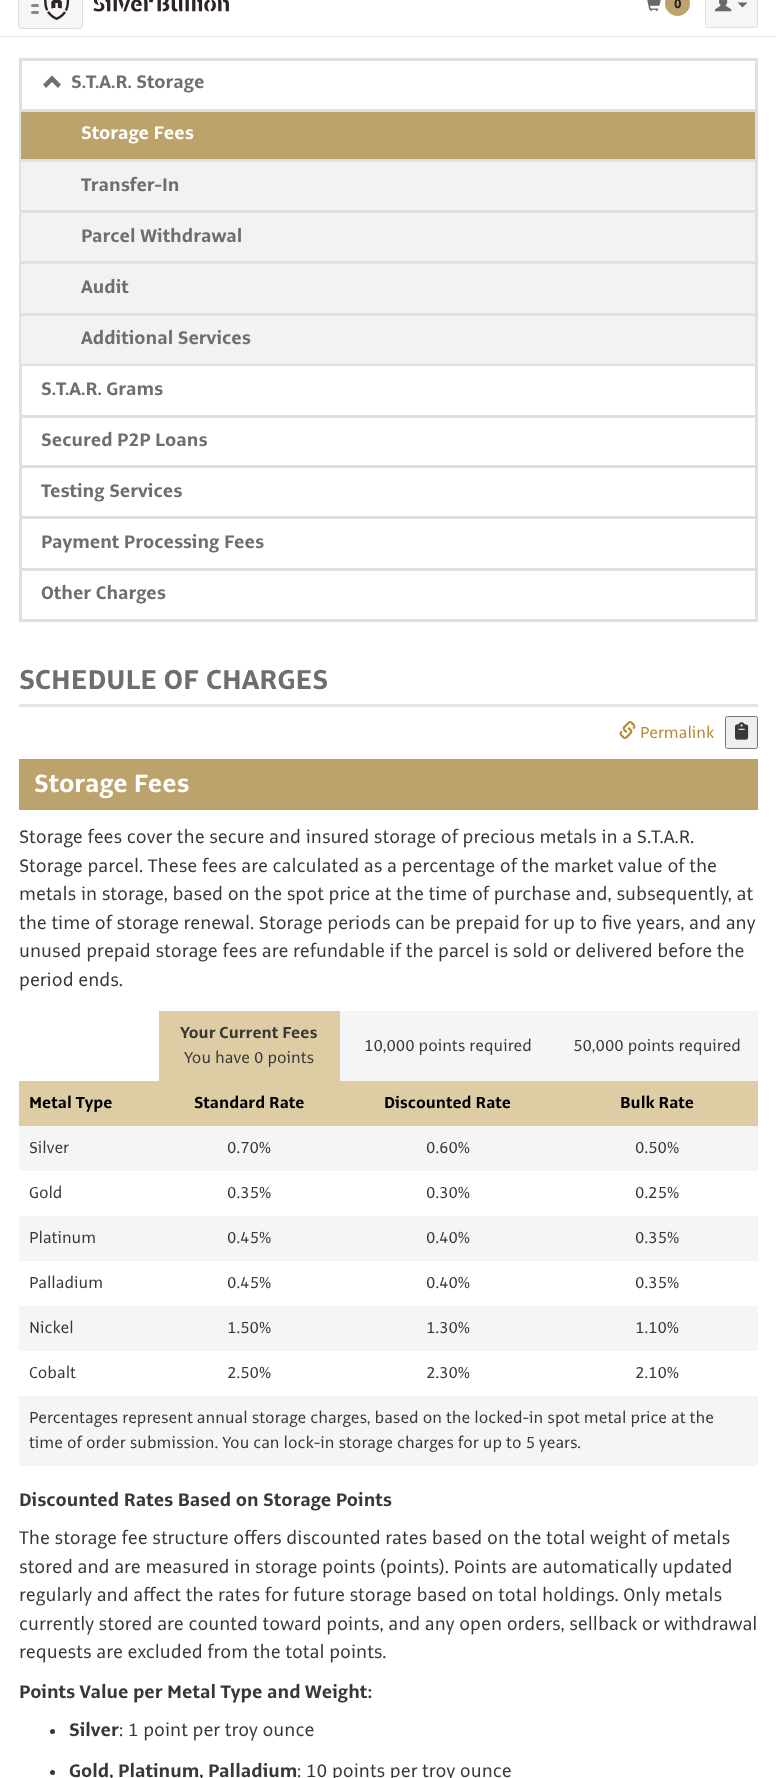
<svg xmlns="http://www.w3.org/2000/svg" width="776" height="1778">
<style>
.a{font:bold 14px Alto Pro;fill:#222}
.b{font:bold 20px Alto Pro;fill:#6e6e6e}
.c{font:bold 20px Alto Pro;fill:#fff}
.d{font:bold 30px Alto Pro;fill:#6e6e6e}
.e{font:17.5px Alto Pro;fill:#b48933}
.f{font:bold 27.5px Alto Pro;fill:#fff}
.g{font:20px Alto Pro;fill:#383838}
.h{font:bold 17.5px Alto Pro;fill:#383838}
.i{font:17.5px Alto Pro;fill:#383838}
.j{font:bold 17.5px Alto Pro;fill:#000}
.k{font:bold 20px Alto Pro;fill:#383838}
</style>
<rect width="100%" height="100%" fill="#fff"/>
<path fill="#e6e6e6" d="M0 36h776v1H0z"/>
<rect fill="#f6f6f6" stroke="#ddd" x="18.5" y="-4.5" width="64" height="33" rx="3.5"/>
<rect fill="#888" x="31" y="4" width="8" height="3" rx="1.5"/>
<image href="1.png" x="44" y="0" width="26" height="20"/>
<rect fill="#888" x="31" y="11" width="8" height="3" rx="1.5"/>
<image href="2.png" x="93" y="0" width="136" height="12"/>
<image href="3.png" x="647" y="0" width="14" height="12"/>
<circle fill="#bca36c" cx="677.5" cy="3.5" r="12.5"/>
<rect fill="#f6f6f6" stroke="#e0e0e0" x="705.5" y="-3.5" width="52" height="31" rx="2"/>
<image href="4.png" x="715" y="0" width="17" height="12"/>
<path fill="#686868" d="M737.5 2.5h10l-5 5z"/>
<path fill="none" stroke="#e0e0e0" stroke-width="3" d="M20.5 59.5h736v305H20.5z"/>
<path fill="#6e6e6e" d="M43 84.5l9-9l9 9l-3 3.5l-6-6l-6 6z"/>
<path fill="#f2f2f2" d="M21 162h734v202H21z"/>
<path fill="#bca36c" d="M21 112h734v47H21z"/>
<path fill="#e0e0e0" d="M21 109h734v3H21z"/>
<path fill="#e0e0e0" d="M21 159h734v3H21z"/>
<path fill="#e0e0e0" d="M21 210h734v3H21z"/>
<path fill="#e0e0e0" d="M21 261h734v3H21z"/>
<path fill="#e0e0e0" d="M21 313h734v3H21z"/>
<path fill="#e0e0e0" d="M755 366h3v204H755z"/>
<path fill="#e0e0e0" d="M19 415h739v3H19z"/>
<path fill="#e0e0e0" d="M19 366h3v52H19z"/>
<path fill="#e0e0e0" d="M19 465h739v3H19z"/>
<path fill="#e0e0e0" d="M19 418h3v50H19z"/>
<path fill="#e0e0e0" d="M19 516h739v3H19z"/>
<path fill="#e0e0e0" d="M19 468h3v51H19z"/>
<path fill="#e0e0e0" d="M19 568h739v3H19z"/>
<path fill="#e0e0e0" d="M19 519h3v51H19z"/>
<path fill="#e0e0e0" d="M755 570h3v51H755z"/>
<path fill="#e0e0e0" d="M19 619h739v3H19z"/>
<path fill="#e0e0e0" d="M19 570h3v51H19z"/>
<path fill="#e4e4e4" d="M19 704h739v3H19z"/>
<image href="5.png" x="619" y="721" width="17" height="18"/>
<rect fill="#efefef" stroke="#767676" x="725.5" y="716.5" width="32" height="32" rx="2"/>
<image href="6.png" x="735" y="722" width="14" height="18"/>
<path fill="#bca36c" d="M19 759h739v51H19z"/>
<path fill="#decca4" d="M159 1011h181v70H159z"/>
<path fill="#f5f5f5" d="M340 1011h418v70H340z"/>
<path fill="#decca4" d="M19 1081h739v45H19z"/>
<path fill="#f5f5f5" d="M19 1126h739v45H19z"/>
<path fill="#f5f5f5" d="M19 1216h739v45H19z"/>
<path fill="#f5f5f5" d="M19 1306h739v45H19z"/>
<path fill="#f5f5f5" d="M19 1396h739v70H19z"/>
<circle fill="#383838" cx="52.5" cy="1731.5" r="2.5"/>
<circle fill="#383838" cx="52.5" cy="1772.5" r="2.5"/>
<text class="a" x="674" y="8">0</text>
<text class="b" x="71" y="88">S.T.A.R. Storage</text>
<text class="c" x="81" y="139">Storage Fees</text>
<text class="b" x="81" y="191">Transfer-In</text>
<text class="b" x="81" y="242">Parcel Withdrawal</text>
<text class="b" x="81" y="293">Audit</text>
<text class="b" x="81" y="344">Additional Services</text>
<text class="b" x="41" y="395">S.T.A.R. Grams</text>
<text class="b" x="41" y="446">Secured P2P Loans</text>
<text class="b" x="41" y="497">Testing Services</text>
<text class="b" x="41" y="548">Payment Processing Fees</text>
<text class="b" x="41" y="599">Other Charges</text>
<text class="d" x="19" y="689">SCHEDULE OF CHARGES</text>
<text class="e" x="640" y="738">Permalink</text>
<text class="f" x="34" y="792">Storage Fees</text>
<text class="g" x="19" y="843">Storage fees cover the secure and insured storage of precious metals in a S.T.A.R.</text>
<text class="g" x="19" y="872">Storage parcel. These fees are calculated as a percentage of the market value of the</text>
<text class="g" x="19" y="900">metals in storage, based on the spot price at the time of purchase and, subsequently, at</text>
<text class="g" x="19" y="929">the time of storage renewal. Storage periods can be prepaid for up to five years, and any</text>
<text class="g" x="19" y="957">unused prepaid storage fees are refundable if the parcel is sold or delivered before the</text>
<text class="g" x="19" y="986">period ends.</text>
<text class="h" x="180" y="1038">Your Current Fees</text>
<text class="i" x="184" y="1063">You have 0 points</text>
<text class="i" x="364" y="1051">10,000 points required</text>
<text class="i" x="573" y="1051">50,000 points required</text>
<text class="j" x="29" y="1108">Metal Type</text>
<text class="j" x="194" y="1108">Standard Rate</text>
<text class="j" x="384" y="1108">Discounted Rate</text>
<text class="j" x="620" y="1108">Bulk Rate</text>
<text class="i" x="29" y="1153">Silver</text>
<text class="i" x="227" y="1153">0.70%</text>
<text class="i" x="426" y="1153">0.60%</text>
<text class="i" x="635" y="1153">0.50%</text>
<text class="i" x="29" y="1198">Gold</text>
<text class="i" x="227" y="1198">0.35%</text>
<text class="i" x="426" y="1198">0.30%</text>
<text class="i" x="635" y="1198">0.25%</text>
<text class="i" x="29" y="1243">Platinum</text>
<text class="i" x="227" y="1243">0.45%</text>
<text class="i" x="426" y="1243">0.40%</text>
<text class="i" x="635" y="1243">0.35%</text>
<text class="i" x="29" y="1288">Palladium</text>
<text class="i" x="227" y="1288">0.45%</text>
<text class="i" x="426" y="1288">0.40%</text>
<text class="i" x="635" y="1288">0.35%</text>
<text class="i" x="29" y="1333">Nickel</text>
<text class="i" x="227" y="1333">1.50%</text>
<text class="i" x="426" y="1333">1.30%</text>
<text class="i" x="635" y="1333">1.10%</text>
<text class="i" x="29" y="1378">Cobalt</text>
<text class="i" x="227" y="1378">2.50%</text>
<text class="i" x="426" y="1378">2.30%</text>
<text class="i" x="635" y="1378">2.10%</text>
<text class="i" x="29" y="1423">Percentages represent annual storage charges, based on the locked-in spot metal price at the</text>
<text class="i" x="29" y="1448">time of order submission. You can lock-in storage charges for up to 5 years.</text>
<text class="k" x="19" y="1506">Discounted Rates Based on Storage Points</text>
<text class="g" x="19" y="1544">The storage fee structure offers discounted rates based on the total weight of metals</text>
<text class="g" x="19" y="1573">stored and are measured in storage points (points). Points are automatically updated</text>
<text class="g" x="19" y="1601">regularly and affect the rates for future storage based on total holdings. Only metals</text>
<text class="g" x="19" y="1630">currently stored are counted toward points, and any open orders, sellback or withdrawal</text>
<text class="g" x="19" y="1658">requests are excluded from the total points.</text>
<text class="k" x="19" y="1698">Points Value per Metal Type and Weight:</text>
<text class="k" x="69" y="1736">Silver</text>
<text class="g" x="119" y="1736">: 1 point per troy ounce</text>
<text class="k" x="69" y="1777">Gold, Platinum, Palladium</text>
<text class="g" x="297" y="1777">: 10 points per troy ounce</text>
</svg>
